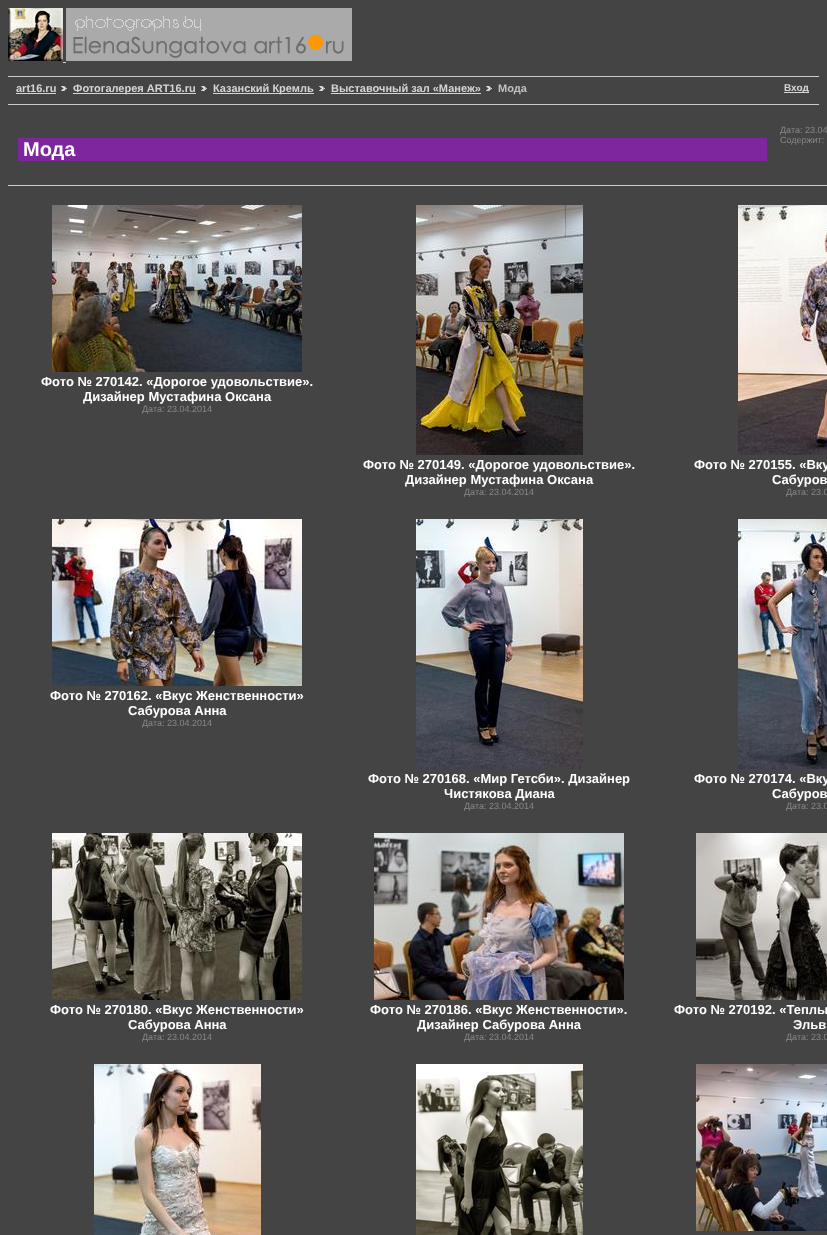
<svg xmlns="http://www.w3.org/2000/svg" width="827" height="1235">
<style>
.a{font:bold 11px Liberation Sans;fill:#d6d6d6}
.b{font:bold 11px Liberation Sans;fill:#c2c2c2}
.c{font:bold 10px Liberation Sans;fill:#d6d6d6}
.d{font:9px Liberation Sans;fill:#888}
.e{font:bold 20px Liberation Sans;fill:#fff}
.f{font:bold 13px Liberation Sans;fill:#fff}
</style>
<rect width="100%" height="100%" fill="#444"/>
<image href="1.png" x="8" y="8" width="55" height="53"/>
<image href="2.png" x="66" y="8" width="286" height="53"/>
<path fill="#d6d6d6" d="M63 62h3v1H63z"/>
<path fill="#ccc" d="M8 76h811v1H8z"/>
<path fill="#ccc" d="M8 104h811v1H8z"/>
<path fill="#d6d6d6" d="M16 93h40v1H16z"/>
<image href="3.png" x="61" y="86" width="6" height="5"/>
<path fill="#d6d6d6" d="M73 93h123v1H73z"/>
<image href="3.png" x="201" y="86" width="6" height="5"/>
<path fill="#d6d6d6" d="M213 93h101v1H213z"/>
<image href="3.png" x="319" y="86" width="6" height="5"/>
<path fill="#d6d6d6" d="M331 93h150v1H331z"/>
<image href="3.png" x="486" y="86" width="6" height="5"/>
<path fill="#d6d6d6" d="M784 92h25v1H784z"/>
<path fill="#ccc" d="M8 185h819v1H8z"/>
<path fill="#7e269e" d="M18 138h749v23H18z"/>
<image href="4.png" x="52" y="205" width="250" height="167"/>
<image href="5.png" x="416" y="205" width="167" height="250"/>
<image href="6.png" x="738" y="205" width="89" height="250"/>
<image href="7.png" x="52" y="519" width="250" height="167"/>
<image href="8.png" x="416" y="519" width="167" height="250"/>
<image href="9.png" x="738" y="519" width="89" height="250"/>
<image href="10.png" x="52" y="833" width="250" height="167"/>
<image href="11.png" x="374" y="833" width="250" height="167"/>
<image href="12.png" x="696" y="833" width="131" height="167"/>
<image href="13.png" x="94" y="1064" width="167" height="171"/>
<image href="14.png" x="416" y="1064" width="167" height="171"/>
<image href="15.png" x="696" y="1064" width="131" height="167"/>
<text class="a" x="16" y="92">art16.ru</text>
<text class="a" x="73" y="92">Фотогалерея ART16.ru</text>
<text class="a" x="213" y="92">Казанский Кремль</text>
<text class="a" x="331" y="92">Выставочный зал «Манеж»</text>
<text class="b" x="498" y="92">Мода</text>
<text class="c" x="784" y="91">Вход</text>
<text class="d" x="780" y="133">Дата: 23.04</text>
<text class="d" x="780" y="143">Содержит:</text>
<text class="e" x="23" y="156">Мода</text>
<text class="f" x="41" y="386">Фото № 270142. «Дорогое удовольствие».</text>
<text class="f" x="83" y="401">Дизайнер Мустафина Оксана</text>
<text class="d" x="142" y="412">Дата: 23.04.2014</text>
<text class="f" x="363" y="469">Фото № 270149. «Дорогое удовольствие».</text>
<text class="f" x="405" y="484">Дизайнер Мустафина Оксана</text>
<text class="d" x="464" y="495">Дата: 23.04.2014</text>
<text class="f" x="694" y="469">Фото № 270155. «Вку</text>
<text class="f" x="772" y="484">Сабуров</text>
<text class="d" x="786" y="495">Дата: 23.0</text>
<text class="f" x="50" y="700">Фото № 270162. «Вкус Женственности»</text>
<text class="f" x="128" y="715">Сабурова Анна</text>
<text class="d" x="142" y="726">Дата: 23.04.2014</text>
<text class="f" x="368" y="783">Фото № 270168. «Мир Гетсби». Дизайнер</text>
<text class="f" x="444" y="798">Чистякова Диана</text>
<text class="d" x="464" y="809">Дата: 23.04.2014</text>
<text class="f" x="694" y="783">Фото № 270174. «Вку</text>
<text class="f" x="772" y="798">Сабуров</text>
<text class="d" x="786" y="809">Дата: 23.0</text>
<text class="f" x="50" y="1014">Фото № 270180. «Вкус Женственности»</text>
<text class="f" x="128" y="1029">Сабурова Анна</text>
<text class="d" x="142" y="1040">Дата: 23.04.2014</text>
<text class="f" x="370" y="1014">Фото № 270186. «Вкус Женственности».</text>
<text class="f" x="417" y="1029">Дизайнер Сабурова Анна</text>
<text class="d" x="464" y="1040">Дата: 23.04.2014</text>
<text class="f" x="674" y="1014">Фото № 270192. «Теплы</text>
<text class="f" x="793" y="1029">Эльв</text>
<text class="d" x="786" y="1040">Дата: 23.0</text>
</svg>
